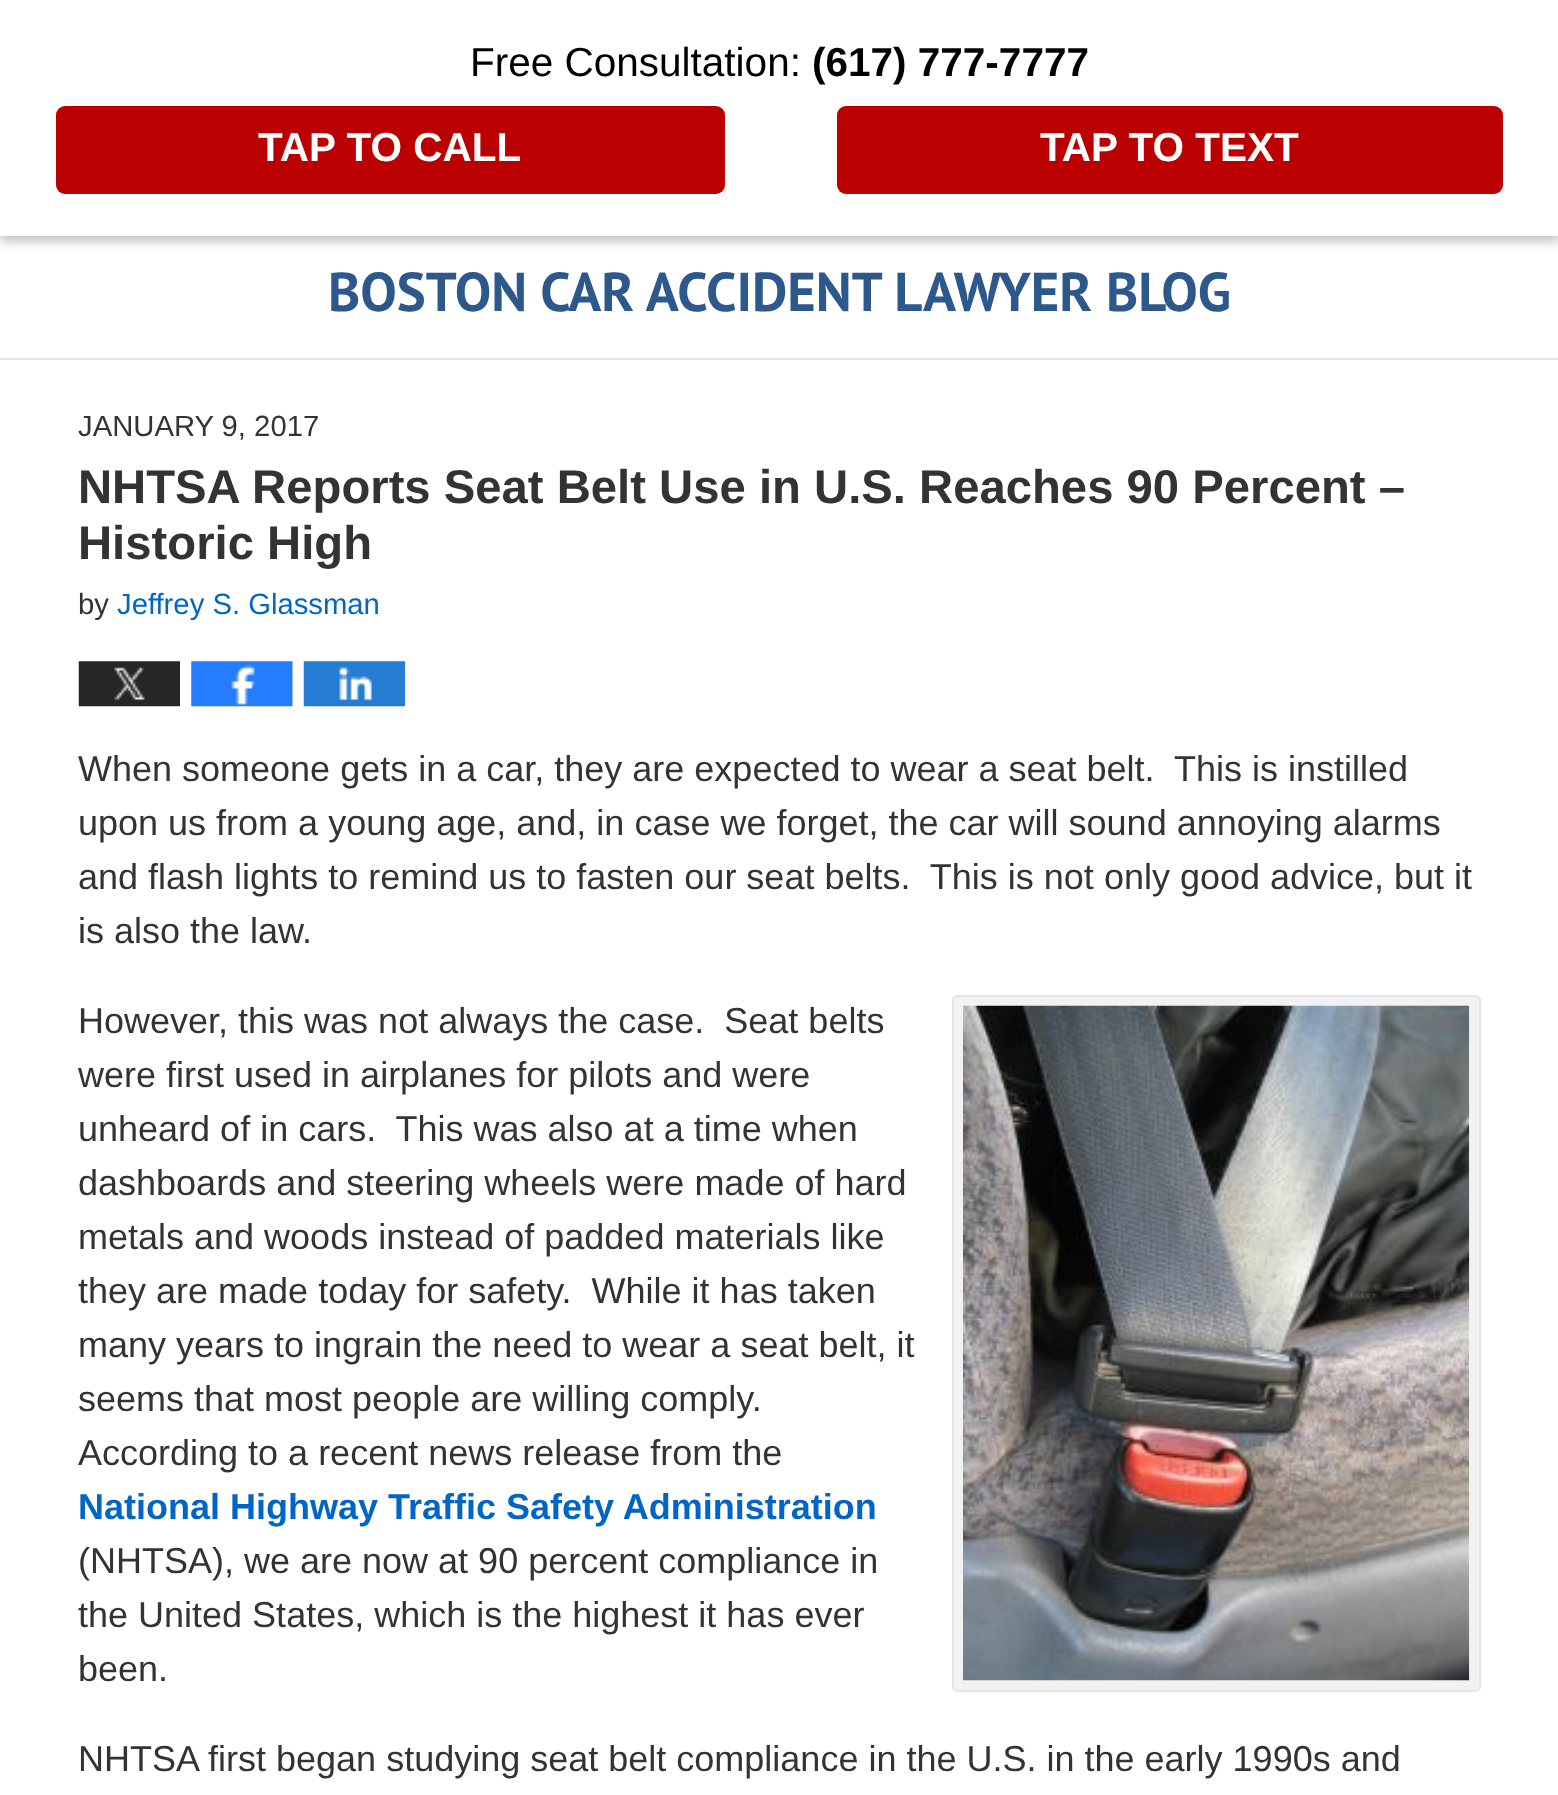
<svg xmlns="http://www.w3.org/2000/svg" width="1558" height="1795">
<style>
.a{font:40.5px Liberation Sans;fill:#000}
.b{font:bold 40.5px Liberation Sans;fill:#000}
.c{font:bold 40.5px Liberation Sans;fill:#fff}
.d{font:bold 54.6px PT Sans;fill:#2c588c}
.e{font:29.25px Liberation Sans;fill:#333}
.f{font:bold 47.25px Liberation Sans;fill:#333}
.g{font:29.25px Liberation Sans;fill:#0066c6}
.h{font:36px Liberation Sans;fill:#333}
.i{font:bold 36px Liberation Sans;fill:#0066c6}
</style>
<rect width="100%" height="100%" fill="#fff"/>
<path fill="#00000042" filter="blur(5.5px)" d="M0 5h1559v236H0z"/>
<path fill="#fff" d="M0 0h1558v236H0z"/>
<rect fill="#ba0000" x="56" y="106" width="669" height="88" rx="9"/>
<rect fill="#ba0000" x="837" y="106" width="666" height="88" rx="9"/>
<path fill="#e5e5e5" d="M0 358h1558v2H0z"/>
<image href="1.png" x="78" y="661" width="102" height="46"/>
<image href="2.png" x="191" y="661" width="102" height="46"/>
<image href="3.png" x="303" y="661" width="102" height="46"/>
<rect fill="#f2f2f2" stroke="#e6e6e6" stroke-width="2" x="953" y="996" width="527" height="695" rx="4"/>
<image href="4.png" x="963" y="1005" width="507" height="676"/>
<text class="a" x="470" y="76">Free Consultation:</text>
<text class="b" x="812" y="76">(617) 777-7777</text>
<text class="c" x="258" y="161">TAP TO CALL</text>
<text class="c" x="1040" y="161">TAP TO TEXT</text>
<text class="d" x="328" y="311">BOSTON CAR ACCIDENT LAWYER BLOG</text>
<text class="e" x="78" y="436">JANUARY 9, 2017</text>
<text class="f" x="78" y="503">NHTSA Reports Seat Belt Use in U.S. Reaches 90 Percent –</text>
<text class="f" x="78" y="559">Historic High</text>
<text class="e" x="78" y="614">by</text>
<text class="g" x="117" y="614">Jeffrey S. Glassman</text>
<text class="h" xml:space="preserve" x="78" y="781">When someone gets in a car, they are expected to wear a seat belt.  This is instilled</text>
<text class="h" x="78" y="835">upon us from a young age, and, in case we forget, the car will sound annoying alarms</text>
<text class="h" xml:space="preserve" x="78" y="889">and flash lights to remind us to fasten our seat belts.  This is not only good advice, but it</text>
<text class="h" x="78" y="943">is also the law.</text>
<text class="h" xml:space="preserve" x="78" y="1033">However, this was not always the case.  Seat belts</text>
<text class="h" x="78" y="1087">were first used in airplanes for pilots and were</text>
<text class="h" xml:space="preserve" x="78" y="1141">unheard of in cars.  This was also at a time when</text>
<text class="h" x="78" y="1195">dashboards and steering wheels were made of hard</text>
<text class="h" x="78" y="1249">metals and woods instead of padded materials like</text>
<text class="h" xml:space="preserve" x="78" y="1303">they are made today for safety.  While it has taken</text>
<text class="h" x="78" y="1357">many years to ingrain the need to wear a seat belt, it</text>
<text class="h" x="78" y="1411">seems that most people are willing comply.</text>
<text class="h" x="78" y="1465">According to a recent news release from the</text>
<text class="i" x="78" y="1519">National Highway Traffic Safety Administration</text>
<text class="h" x="78" y="1573">(NHTSA), we are now at 90 percent compliance in</text>
<text class="h" x="78" y="1627">the United States, which is the highest it has ever</text>
<text class="h" x="78" y="1681">been.</text>
<text class="h" x="78" y="1771">NHTSA first began studying seat belt compliance in the U.S. in the early 1990s and</text>
</svg>
